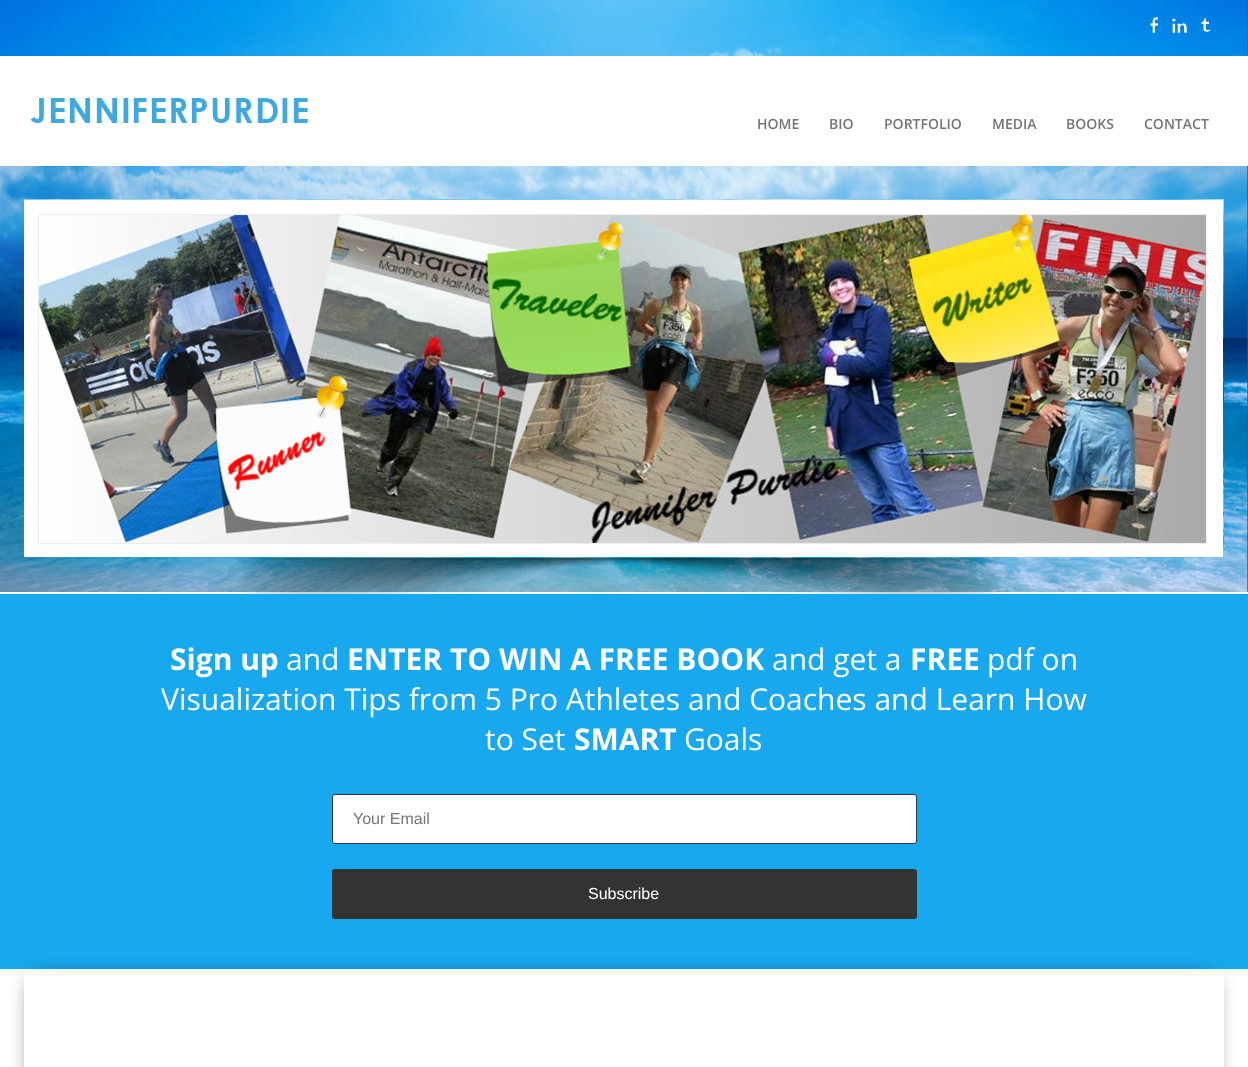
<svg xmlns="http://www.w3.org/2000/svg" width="1248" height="1067">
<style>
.a{font:600 14px Open Sans;fill:#757575}
.b{font:bold 30px Open Sans;fill:#fff}
.c{font:30px Open Sans;fill:#fff}
.d{font:16px Liberation Sans;fill:#757575}
.e{font:16px Liberation Sans;fill:#fff}
</style>
<defs>
<clipPath id="clip1"><path d="M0 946h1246v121h-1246zm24 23h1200v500h-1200z" clip-rule="evenodd"/></clipPath>
</defs>
<rect width="100%" height="100%" fill="#fff"/>
<image href="1.png" x="0" y="0" width="1248" height="594"/>
<image href="2.png" x="1150" y="17" width="8" height="16"/>
<image href="3.png" x="1172" y="18" width="15" height="15"/>
<image href="4.png" x="1201" y="18" width="9" height="14"/>
<path fill="#fff" d="M0 56h1248v110H0z"/>
<image href="5.png" x="30" y="98" width="278" height="25"/>
<image href="6.png" x="24" y="199" width="1200" height="358"/>
<path fill="#18a8ef" d="M0 594h1248v375H0z"/>
<rect fill="#fff" stroke="#333" x="332.5" y="794.5" width="584" height="49" rx="2.5"/>
<rect fill="#333" x="332" y="869" width="585" height="50" rx="3"/>
<g clip-path="url(#clip1)">
<path fill="#000" filter="blur(11.5px)" d="M36 982h1174v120H36z"/>
</g>
<text class="a" x="757" y="129">HOME</text>
<text class="a" x="829" y="129">BIO</text>
<text class="a" x="884" y="129">PORTFOLIO</text>
<text class="a" x="992" y="129">MEDIA</text>
<text class="a" x="1066" y="129">BOOKS</text>
<text class="a" x="1144" y="129">CONTACT</text>
<text class="b" x="170" y="670">Sign up</text>
<text class="c" x="286" y="670">and</text>
<text class="b" x="347" y="670">ENTER TO WIN A FREE BOOK</text>
<text class="c" x="772" y="670">and get a</text>
<text class="b" x="910" y="670">FREE</text>
<text class="c" x="987" y="670">pdf on</text>
<text class="c" x="161" y="710">Visualization Tips from 5 Pro Athletes and Coaches and Learn How</text>
<text class="c" x="485" y="750">to Set</text>
<text class="b" x="574" y="750">SMART</text>
<text class="c" x="684" y="750">Goals</text>
<text class="d" x="353" y="824">Your Email</text>
<text class="e" x="588" y="899">Subscribe</text>
</svg>
